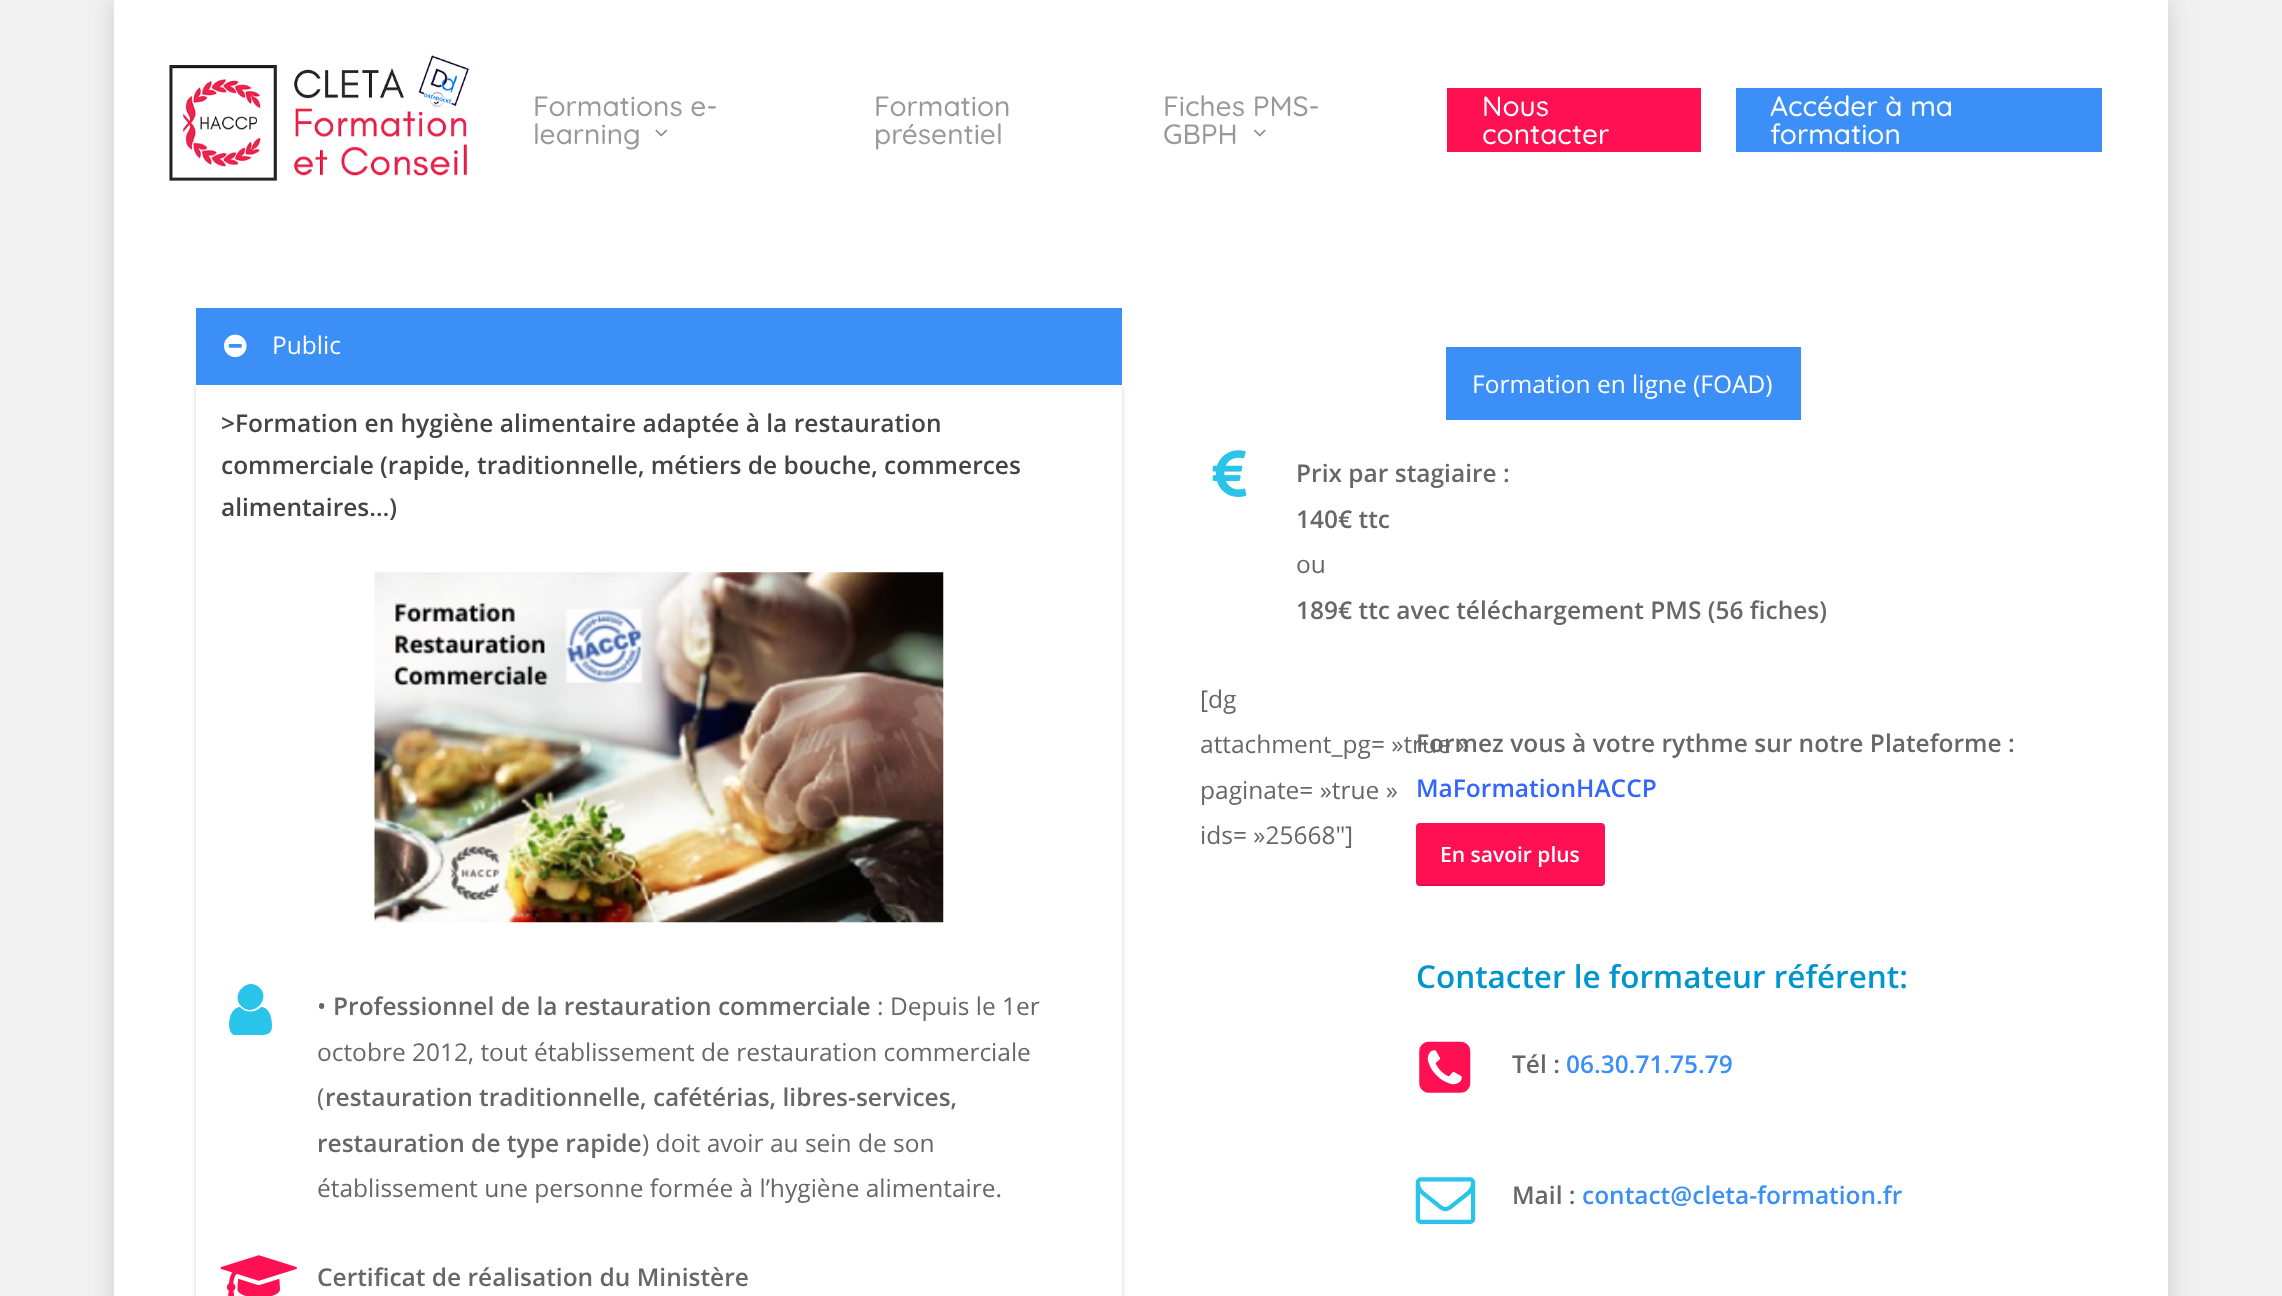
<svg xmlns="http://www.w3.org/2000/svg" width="2282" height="1296">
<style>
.a{font:500 28px Quicksand;fill:#999}
.b{font:500 28px Quicksand;fill:#fff}
.c{font:24.5px Open Sans;fill:#fff}
.d{font:600 24.5px Open Sans;fill:#444}
.e{font:24.5px Open Sans;fill:#676767}
.f{font:600 24.5px Open Sans;fill:#676767}
.g{font:600 24.5px Open Sans;fill:#36f}
.h{font:600 21px Open Sans;fill:#fff}
.i{font:600 31.5px Open Sans;fill:#0096cd}
.j{font:600 24.5px Open Sans;fill:#3b8ff7}
</style>
<rect width="100%" height="100%" fill="#f1f1f1"/>
<path fill="#00000026" filter="blur(13px)" d="M114 0h2054v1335H114z"/>
<path fill="#fff" d="M114 0h2054v1296H114z"/>
<image href="1.png" x="169" y="55" width="300" height="126"/>
<image href="2.png" x="655" y="129" width="12" height="8"/>
<image href="3.png" x="1254" y="129" width="12" height="8"/>
<path fill="#ff1053" d="M1447 88h254v64H1447z"/>
<path fill="#3b8ff7" d="M1736 88h366v64H1736z"/>
<path fill="#00000033" filter="blur(2px)" d="M196 387h926v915H196z"/>
<path fill="#3b8ff7" d="M196 308h926v77H196z"/>
<image href="4.png" x="224" y="334" width="23" height="24"/>
<path fill="#fff" d="M196 385h926v911H196z"/>
<image href="5.png" x="374" y="572" width="570" height="351"/>
<path fill="#2ac4ea" d="M272 1026c0 8-5 9-12 9h-26c-9-4-5-28 6-28c6 6 15 6 21 0c9 0 11 12 11 19zm-12-38c11 12-7 30-19 18c-11-12 7-30 19-18z"/>
<image href="6.png" x="220" y="1255" width="77" height="41"/>
<path fill="#3b8ff7" d="M1446 347h355v73H1446z"/>
<image href="7.png" x="1212" y="450" width="35" height="47"/>
<rect fill="#ff1053" x="1416" y="823" width="189" height="63" rx="4"/>
<path fill="#0000001a" d="M1416 880v2c0 2 2 4 4 4h181c2 0 4-2 4-4v-2c0 2-2 4-4 4h-182c-2 0-3-2-3-4z"/>
<image href="8.png" x="1419" y="1041" width="52" height="52"/>
<image href="9.png" x="1415" y="1177" width="61" height="47"/>
<text class="a" x="533" y="116">Formations e-</text>
<text class="a" x="533" y="144">learning</text>
<text class="a" x="874" y="116">Formation</text>
<text class="a" x="874" y="144">présentiel</text>
<text class="a" x="1163" y="116">Fiches PMS-</text>
<text class="a" x="1163" y="144">GBPH</text>
<text class="b" x="1482" y="116">Nous</text>
<text class="b" x="1482" y="144">contacter</text>
<text class="b" x="1770" y="116">Accéder à ma</text>
<text class="b" x="1770" y="144">formation</text>
<text class="c" x="272" y="354">Public</text>
<text class="d" x="221" y="432">&gt;Formation en hygiène alimentaire adaptée à la restauration</text>
<text class="d" x="221" y="474">commerciale (rapide, traditionnelle, métiers de bouche, commerces</text>
<text class="d" x="221" y="516">alimentaires…)</text>
<text class="e" x="317" y="1015">•</text>
<text class="f" x="333" y="1015">Professionnel de la restauration commerciale</text>
<text class="e" x="877" y="1015">: Depuis le 1er</text>
<text class="e" x="317" y="1061">octobre 2012, tout établissement de restauration commerciale</text>
<text class="e" x="317" y="1106">(</text>
<text class="f" x="325" y="1106">restauration traditionnelle, cafétérias, libres-services,</text>
<text class="f" x="317" y="1152">restauration de type rapide</text>
<text class="e" x="642" y="1152">) doit avoir au sein de son</text>
<text class="e" x="317" y="1197">établissement une personne formée à l’hygiène alimentaire.</text>
<text class="f" x="317" y="1286">Certificat de réalisation du Ministère</text>
<text class="c" x="1472" y="393">Formation en ligne (FOAD)</text>
<text class="f" x="1296" y="482">Prix par stagiaire :</text>
<text class="f" x="1296" y="528">140€ ttc</text>
<text class="e" x="1296" y="573">ou</text>
<text class="f" x="1296" y="619">189€ ttc avec téléchargement PMS (56 fiches)</text>
<text class="e" x="1200" y="708">[dg</text>
<text class="e" x="1200" y="753">attachment_pg= »true »</text>
<text class="e" x="1200" y="799">paginate= »true »</text>
<text class="e" x="1200" y="844">ids= »25668″]</text>
<text class="f" x="1416" y="752">Formez vous à votre rythme sur notre Plateforme :</text>
<text class="g" x="1416" y="797">MaFormationHACCP</text>
<text class="h" x="1440" y="862">En savoir plus</text>
<text class="i" x="1416" y="988">Contacter le formateur référent:</text>
<text class="f" x="1512" y="1073">Tél :</text>
<text class="j" x="1566" y="1073">06.30.71.75.79</text>
<text class="f" x="1512" y="1204">Mail :</text>
<text class="j" x="1582" y="1204">contact@cleta-formation.fr</text>
</svg>
